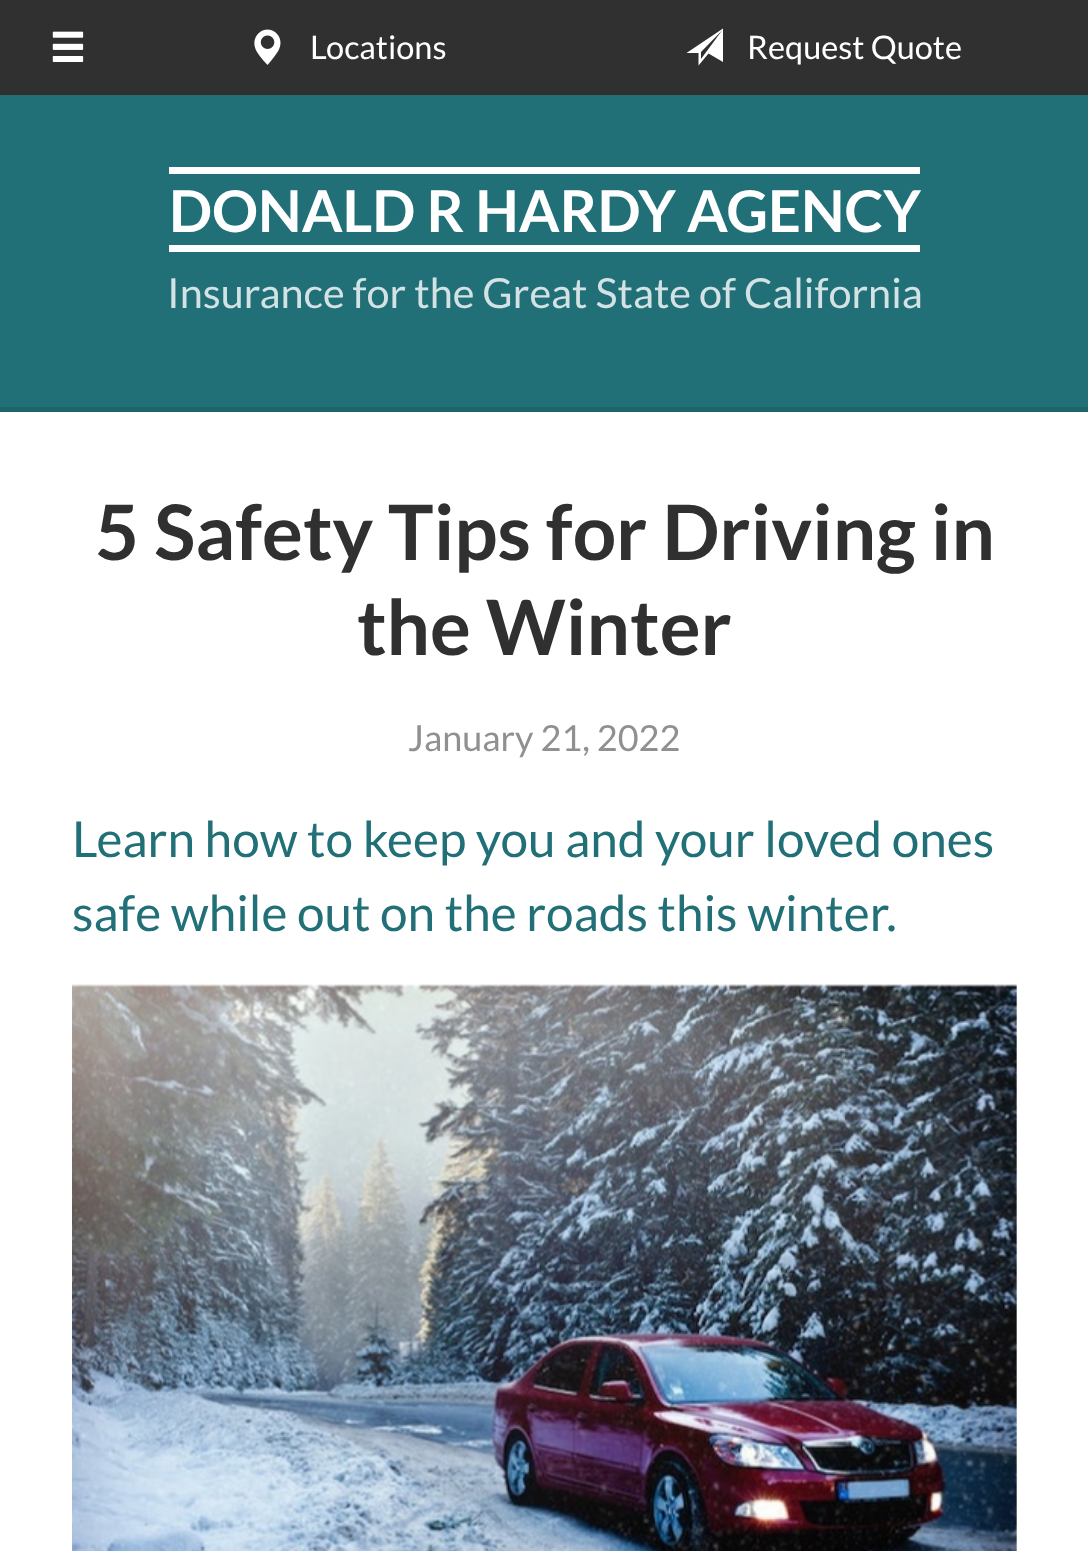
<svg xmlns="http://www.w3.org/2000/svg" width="1088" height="1551">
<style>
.a{font:32.5px Lato;fill:#fff}
.b{font:bold 57.6px Lato;fill:#fff}
.c{font:41.4px Lato;fill:#d3e2e4}
.d{font:bold 76.5px Lato;fill:#303030}
.e{font:36px Lato;fill:#909090}
.f{font:49.5px Lato;fill:#216f77}
</style>
<rect width="100%" height="100%" fill="#303030"/>
<image href="1.png" x="52" y="31" width="32" height="31"/>
<image href="2.png" x="254" y="29" width="27" height="36"/>
<path fill="#fff" d="M686.5 53h12v12.5l10-12l14.5 8.5v-33.5zm14.5 6v-7l21-21.5z"/>
<path fill="#216f77" d="M0 95h1088v312H0z"/>
<path fill="#1e646b" d="M0 407h1088v5H0z"/>
<path fill="#fff" d="M169 167h751v7H169z"/>
<path fill="#fff" d="M169 245h751v7H169z"/>
<path fill="#fff" d="M0 412h1088v1139H0z"/>
<image href="3.png" x="72" y="984" width="945" height="567"/>
<text class="a" x="310" y="59">Locations</text>
<text class="a" x="747" y="59">Request Quote</text>
<text class="b" x="169" y="232">DONALD R HARDY AGENCY</text>
<text class="c" x="167" y="308">Insurance for the Great State of California</text>
<text class="d" x="95" y="560">5 Safety Tips for Driving in</text>
<text class="d" x="357" y="655">the Winter</text>
<text class="e" x="408" y="751">January 21, 2022</text>
<text class="f" x="72" y="857">Learn how to keep you and your loved ones</text>
<text class="f" x="72" y="931">safe while out on the roads this winter.</text>
</svg>
